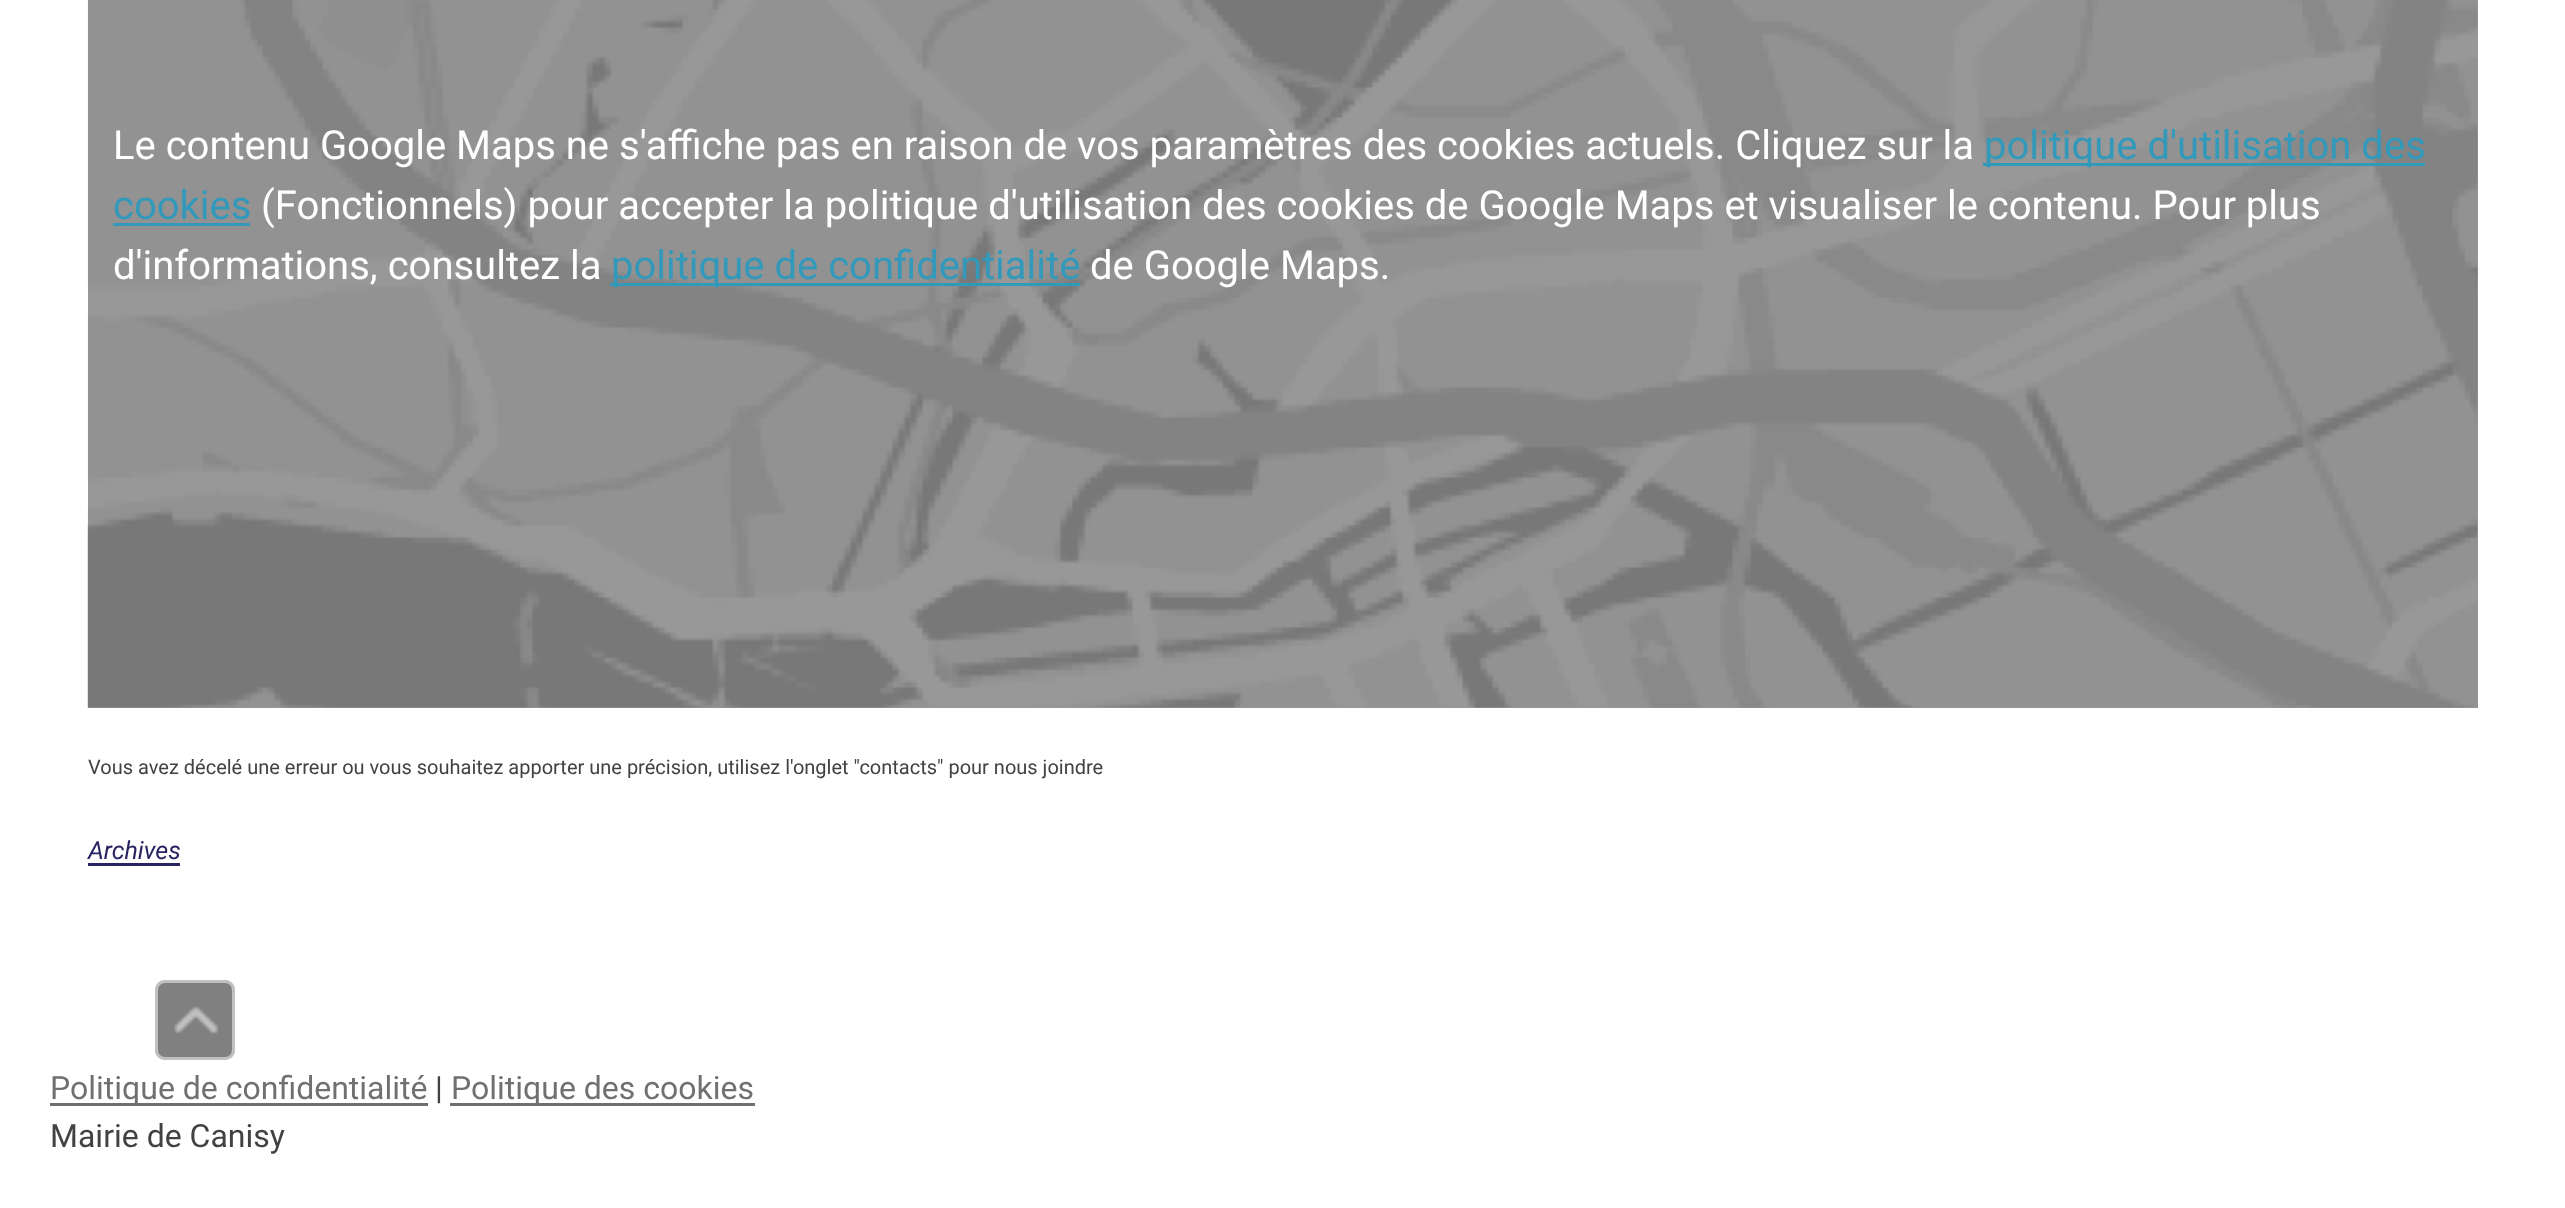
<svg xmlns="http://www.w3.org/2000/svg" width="2565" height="1208">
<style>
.a{font:40px Roboto;fill:#fff}
.b{font:40px Roboto;fill:#3299bb}
.c{font:20px Roboto;fill:#424242}
.d{font:italic 25px Roboto;fill:#282361}
.e{font:32px Roboto;fill:#707070}
.f{font:32px Roboto;fill:#424242}
</style>
<rect width="100%" height="100%" fill="#fff"/>
<path fill="#999" d="M88 0h2390v708H88z"/>
<image href="1.png" x="87" y="0" width="2391" height="708"/>
<path fill="#3299bb" d="M1983 163h442v3H1983z"/>
<path fill="#3299bb" d="M113 223h137v3H113z"/>
<path fill="#3299bb" d="M610 283h470v3H610z"/>
<path fill="#282361" d="M88 863h92v3H88z"/>
<path fill="#707070" d="M50 1103h378v3H50z"/>
<path fill="#707070" d="M450 1103h305v3H450z"/>
<rect fill="#808080" x="155" y="980" width="80" height="80" rx="10"/>
<rect fill="none" stroke="#ffffff80" stroke-width="3" x="156.5" y="981.5" width="77" height="77" rx="8.5"/>
<image href="2.png" x="174" y="1006" width="45" height="28"/>
<text class="a" x="113" y="159">Le contenu Google Maps ne s'affiche pas en raison de vos paramètres des cookies actuels. Cliquez sur la</text>
<text class="b" x="1984" y="159">politique d'utilisation des</text>
<text class="b" x="113" y="219">cookies</text>
<text class="a" x="261" y="219">(Fonctionnels) pour accepter la politique d'utilisation des cookies de Google Maps et visualiser le contenu. Pour plus</text>
<text class="a" x="113" y="279">d'informations, consultez la</text>
<text class="b" x="611" y="279">politique de confidentialité</text>
<text class="a" x="1090" y="279">de Google Maps.</text>
<text class="c" x="88" y="774">Vous avez décelé une erreur ou vous souhaitez apporter une précision, utilisez l'onglet "contacts" pour nous joindre</text>
<text class="d" x="88" y="859">Archives</text>
<text class="e" x="50" y="1099">Politique de confidentialité</text>
<text class="f" x="435" y="1099">|</text>
<text class="e" x="451" y="1099">Politique des cookies</text>
<text class="f" x="50" y="1147">Mairie de Canisy</text>
</svg>
